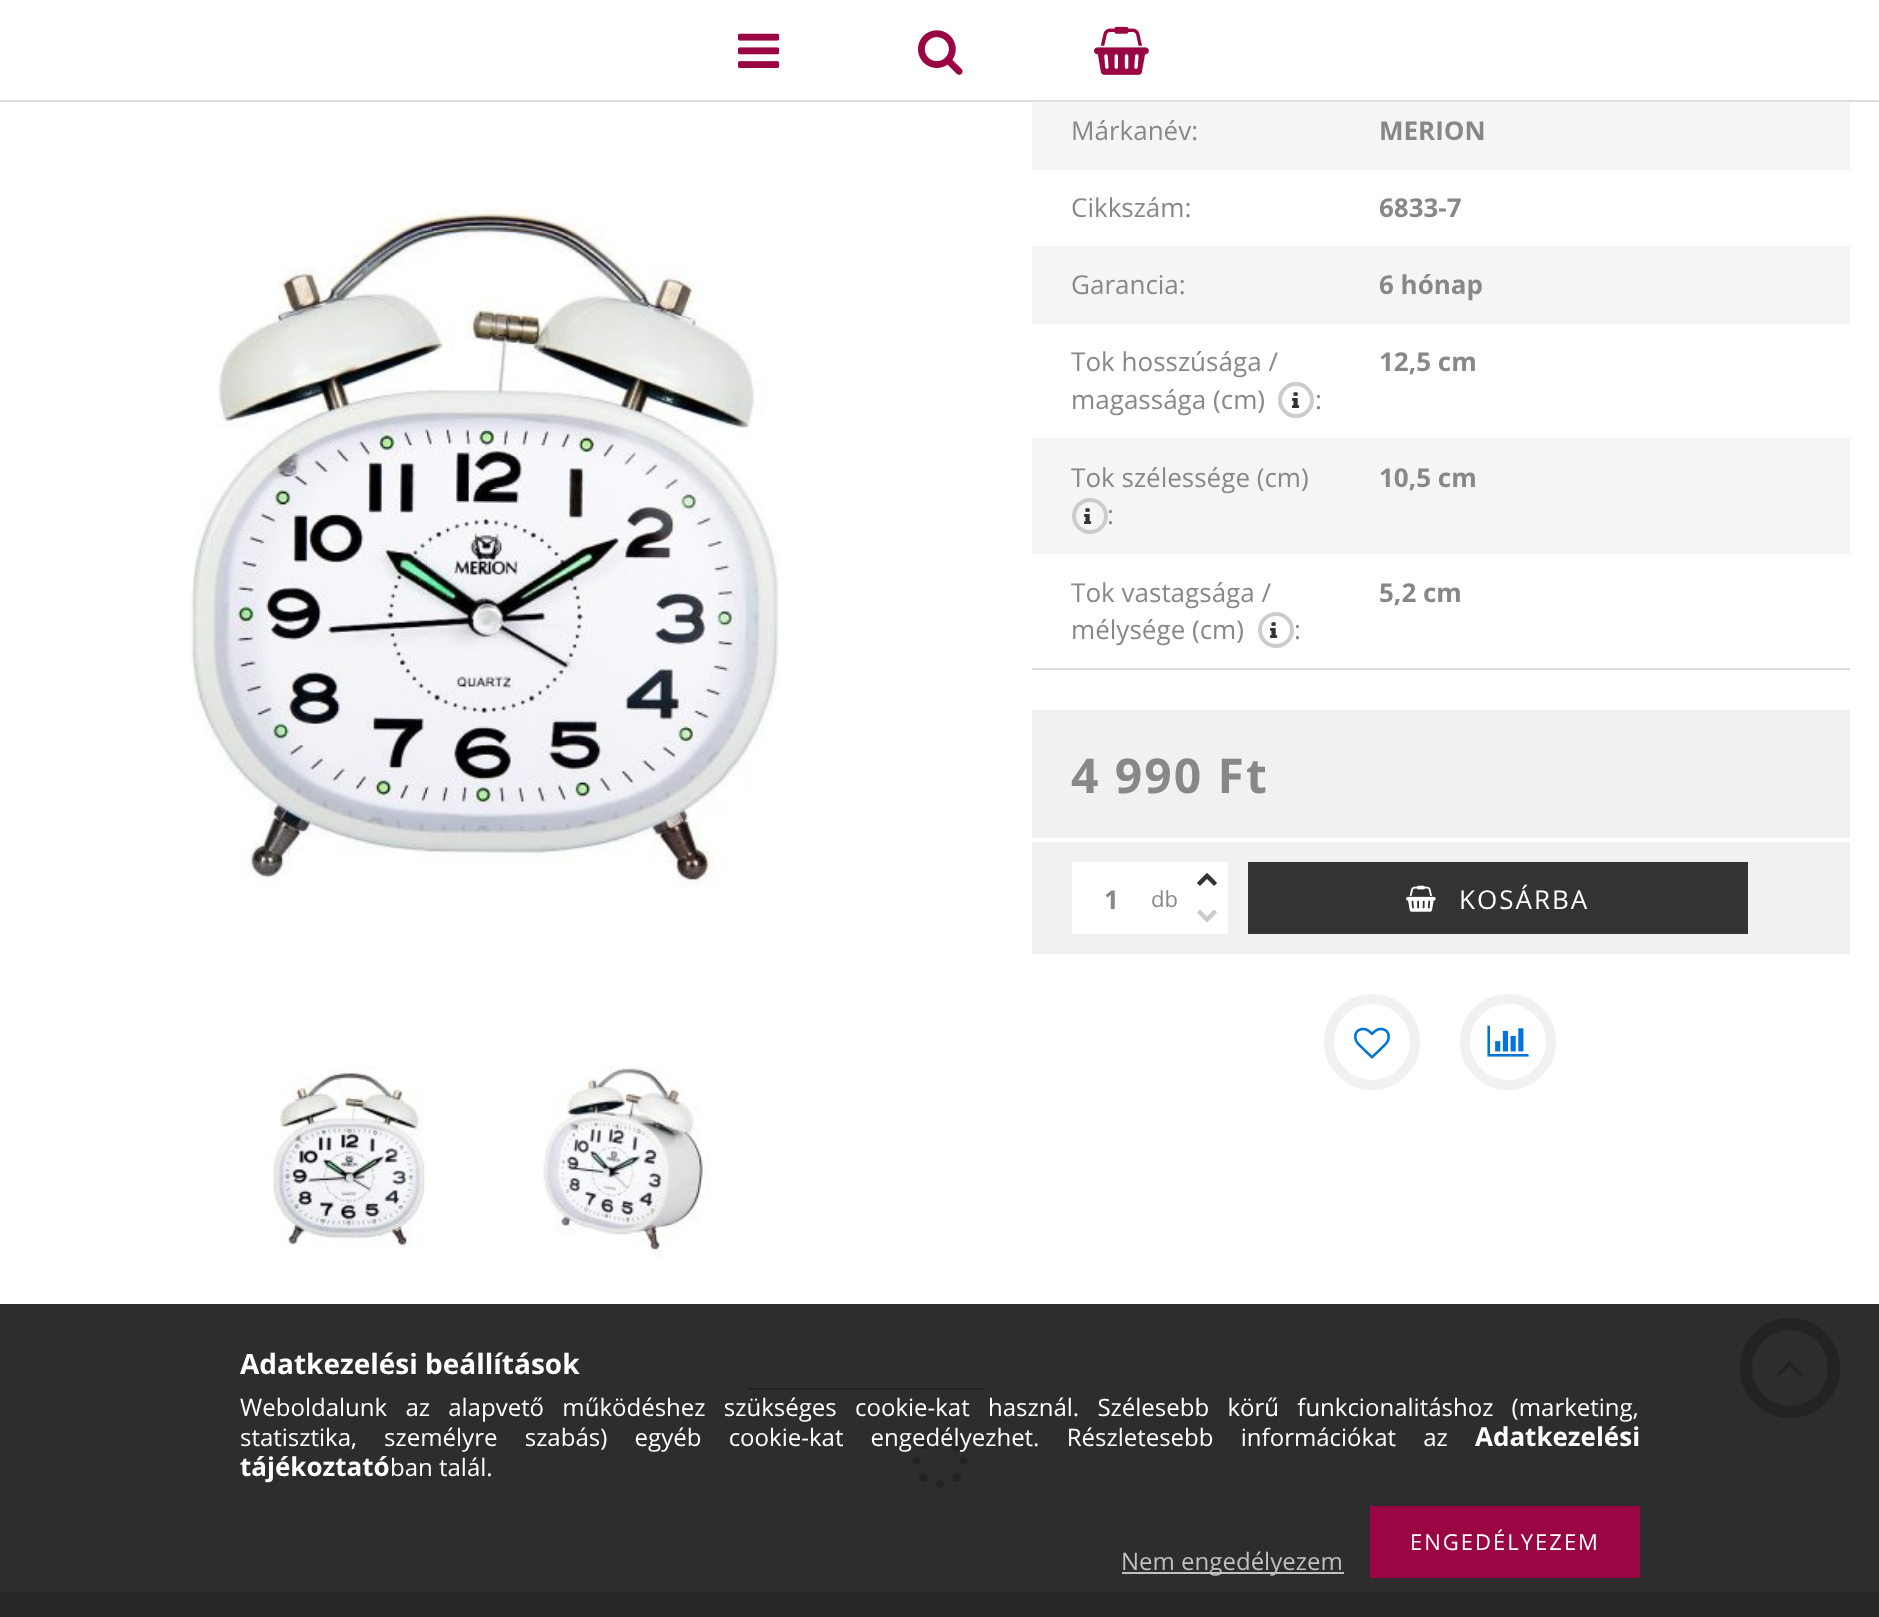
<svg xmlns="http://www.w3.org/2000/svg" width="1879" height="1617">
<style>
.a{font:26px Open Sans;fill:#888}
.b{font:bold 26px Open Sans;fill:#888}
.c{font:bold 48px Open Sans;letter-spacing:2px;fill:#888}
.d{font:22px Open Sans;fill:#888}
.e{font:26px Open Sans;letter-spacing:2px;fill:#fff}
.f{font:bold 28px Open Sans;fill:#fff}
.g{font:24px Open Sans;fill:#fff}
.h{font:bold 26px Open Sans;fill:#fff}
.i{font:22px Open Sans;letter-spacing:2px;fill:#fff}
.j{font:24px Open Sans;fill:#c0c0c0}
</style>
<rect width="100%" height="100%" fill="#fff"/>
<path fill="#2d2d2d" d="M0 1304h1879v288H0z"/>
<path fill="#ddd" d="M0 100h1879v2H0z"/>
<image href="1.png" x="738" y="33" width="42" height="35"/>
<image href="2.png" x="918" y="30" width="45" height="45"/>
<image href="3.png" x="1094" y="26" width="55" height="49"/>
<image href="4.png" x="191" y="207" width="588" height="681"/>
<image href="5.png" x="270" y="1066" width="155" height="181"/>
<image href="6.png" x="543" y="1066" width="166" height="192"/>
<path fill="#ddd" d="M1032 668h818v2H1032z"/>
<path fill="#f5f5f5" d="M1032 102h818v68H1032z"/>
<path fill="#f5f5f5" d="M1032 246h818v78H1032z"/>
<circle fill="none" stroke="#ccc" stroke-width="4" cx="1296" cy="400" r="16"/>
<image href="7.png" x="1292" y="392" width="8" height="16"/>
<path fill="#f5f5f5" d="M1032 438h818v116H1032z"/>
<circle fill="none" stroke="#ccc" stroke-width="4" cx="1090" cy="516" r="16"/>
<image href="8.png" x="1084" y="508" width="8" height="16"/>
<circle fill="none" stroke="#ccc" stroke-width="4" cx="1276" cy="630" r="16"/>
<image href="7.png" x="1270" y="622" width="8" height="16"/>
<path fill="#f1f1f1" d="M1032 710h818v128H1032z"/>
<path fill="#f1f1f1" d="M1032 842h818v112H1032z"/>
<path fill="#fff" d="M1072 862h116v72H1072z"/>
<path fill="#fff" d="M1188 862h40v72H1188z"/>
<image href="9.png" x="1197" y="873" width="20" height="13"/>
<image href="10.png" x="1197" y="909" width="20" height="14"/>
<path fill="#333" d="M1248 862h500v72H1248z"/>
<image href="11.png" x="1406" y="885" width="30" height="27"/>
<circle fill="none" stroke="#f1f1f1" stroke-width="10" cx="1372" cy="1042" r="43"/>
<image href="12.png" x="1354" y="1027" width="36" height="32"/>
<circle fill="none" stroke="#f1f1f1" stroke-width="10" cx="1508" cy="1042" r="43"/>
<image href="13.png" x="1487" y="1025" width="42" height="32"/>
<path fill="#282124" d="M748 1388h236v2H748z"/>
<image href="14.png" x="912" y="1430" width="56" height="59"/>
<path fill="#272727" d="M0 1592h1879v25H0z"/>
<path fill="#990643" d="M1370 1506h270v72H1370z"/>
<path fill="#c0c0c0" d="M1122 1572h222v2H1122z"/>
<circle fill="none" stroke="#232323" stroke-width="12" cx="1790" cy="1368" r="44"/>
<image href="15.png" x="1776" y="1361" width="27" height="16"/>
<text class="a" x="1071" y="140">Márkanév:</text>
<text class="b" x="1379" y="140">MERION</text>
<text class="a" x="1071" y="217">Cikkszám:</text>
<text class="b" x="1379" y="217">6833-7</text>
<text class="a" x="1071" y="294">Garancia:</text>
<text class="b" x="1379" y="294">6 hónap</text>
<text class="a" x="1071" y="371">Tok hosszúsága /</text>
<text class="a" x="1071" y="409">magassága (cm)</text>
<text class="a" x="1315" y="409">:</text>
<text class="b" x="1379" y="371">12,5 cm</text>
<text class="a" x="1071" y="487">Tok szélessége (cm)</text>
<text class="a" x="1107" y="524">:</text>
<text class="b" x="1379" y="487">10,5 cm</text>
<text class="a" x="1071" y="602">Tok vastagsága /</text>
<text class="a" x="1071" y="639">mélysége (cm)</text>
<text class="a" x="1294" y="639">:</text>
<text class="b" x="1379" y="602">5,2 cm</text>
<text class="c" x="1071" y="793">4 990 Ft</text>
<text class="b" x="1104" y="909">1</text>
<text class="d" x="1151" y="907">db</text>
<text class="e" x="1459" y="909">KOSÁRBA</text>
<text class="f" x="240" y="1374">Adatkezelési beállítások</text>
<text class="g" x="240" y="1416" word-spacing="12">Weboldalunk az alapvető működéshez szükséges cookie-kat használ. Szélesebb körű funkcionalitáshoz (marketing,</text>
<text class="g" x="240" y="1446" word-spacing="21">statisztika, személyre szabás) egyéb cookie-kat engedélyezhet. Részletesebb információkat az</text>
<text class="h" x="1475" y="1446">Adatkezelési</text>
<text class="h" x="240" y="1476">tájékoztató</text>
<text class="g" x="390" y="1476">ban talál.</text>
<text class="i" x="1410" y="1550">ENGEDÉLYEZEM</text>
<text class="j" x="1121" y="1570">Nem engedélyezem</text>
</svg>
